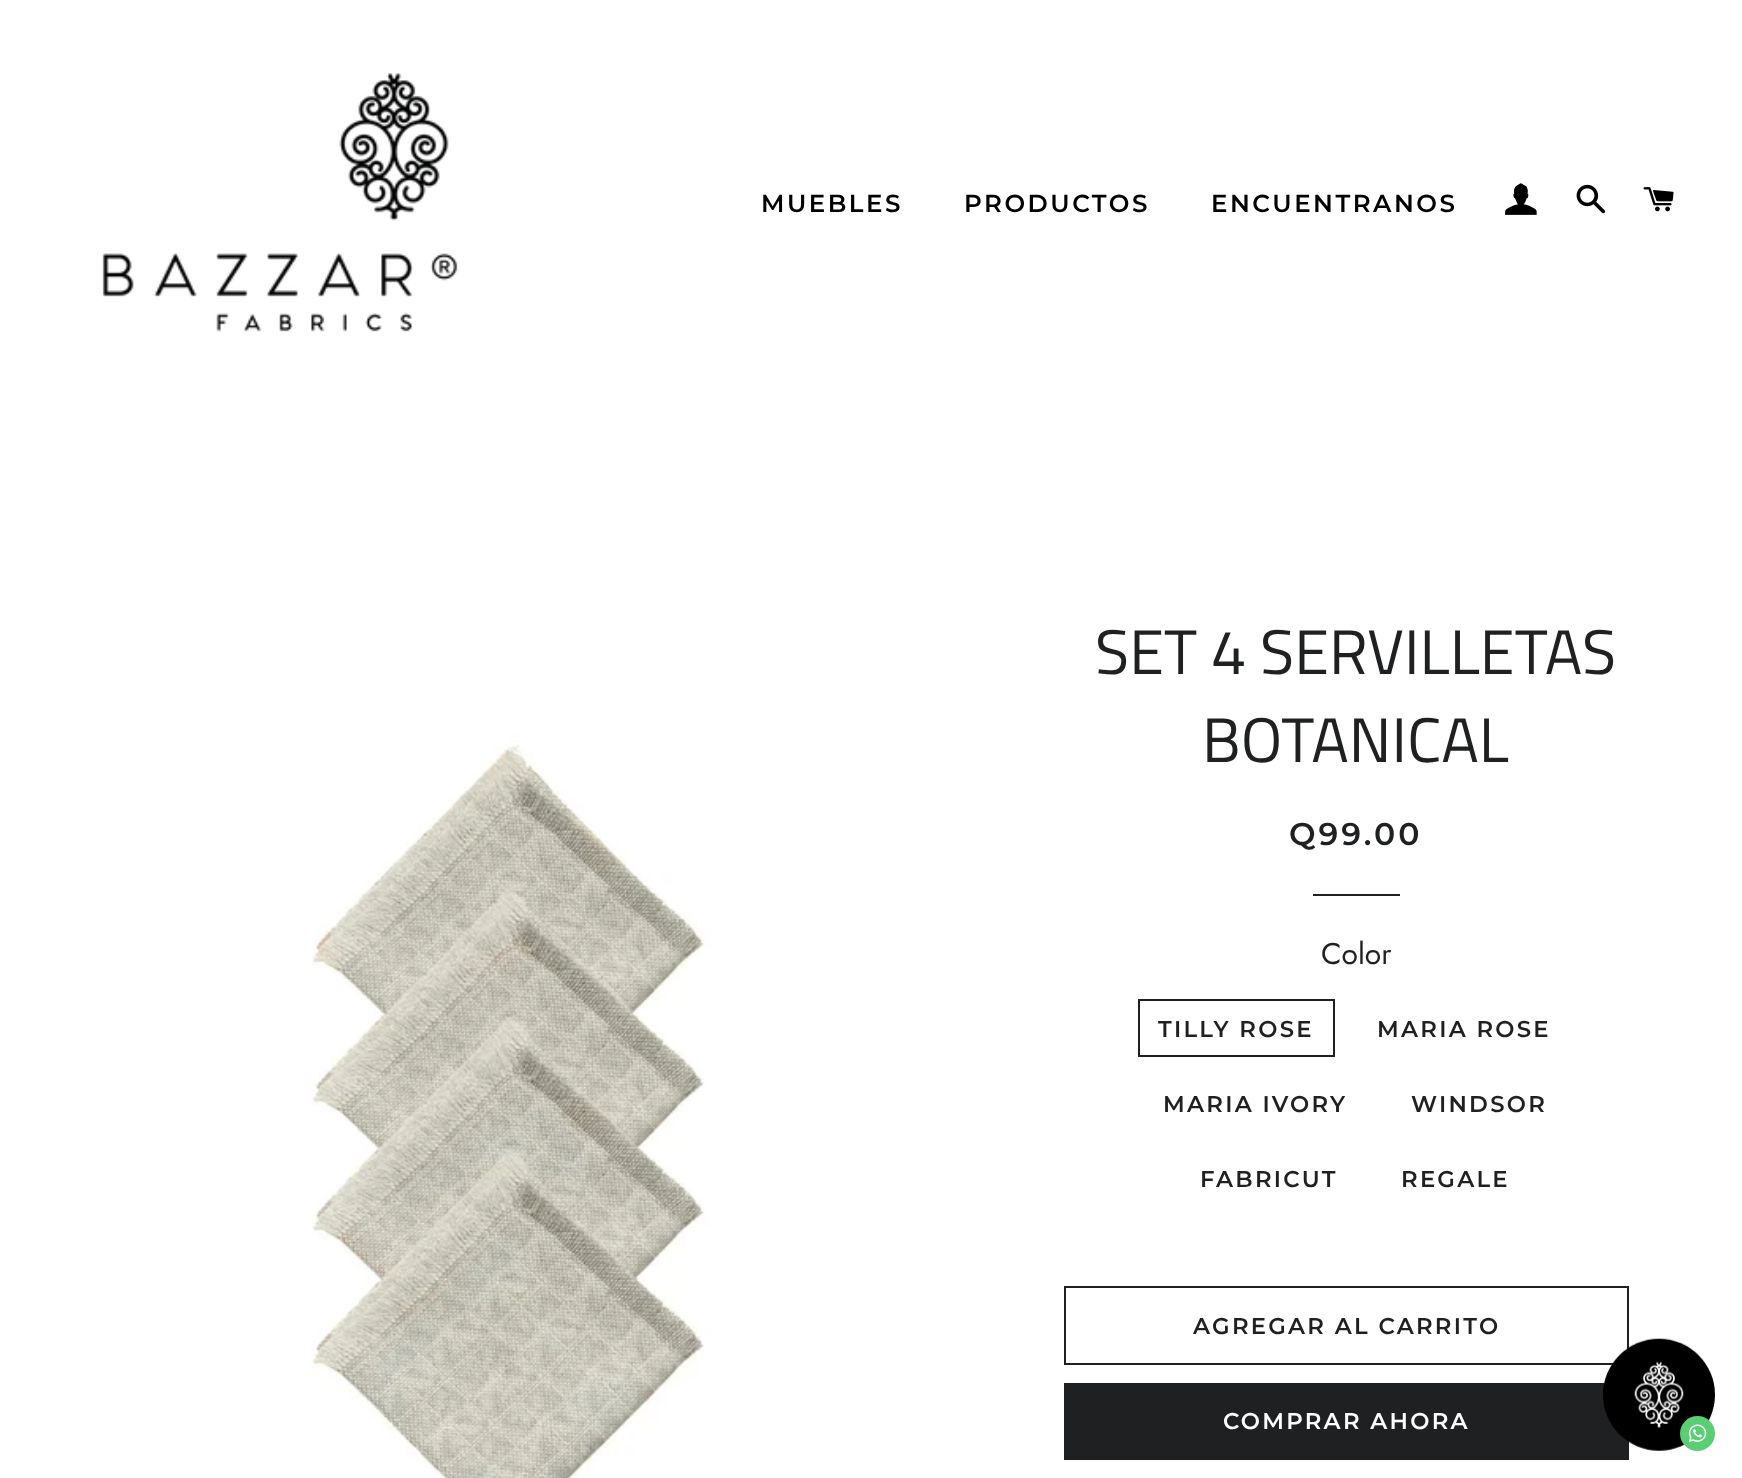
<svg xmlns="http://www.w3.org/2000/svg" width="1742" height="1478">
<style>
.a{font:600 24.5px Montserrat;letter-spacing:2.5px;fill:#000}
.b{font:63px Titillium Web;fill:#1f2021}
.c{font:600 31.5px Montserrat;letter-spacing:3px;fill:#1f2021}
.d{font:30px Jost;fill:#1f2021}
.e{font:600 22.75px Montserrat;letter-spacing:2.25px;fill:#1f2021}
.f{font:600 22.75px Montserrat;letter-spacing:2.25px;fill:#fff}
</style>
<rect width="100%" height="100%" fill="#fff"/>
<image href="1.png" x="102" y="73" width="356" height="259"/>
<image href="2.png" x="1505" y="183" width="32" height="32"/>
<image href="3.png" x="1576" y="184" width="30" height="30"/>
<image href="4.png" x="1643" y="187" width="31" height="25"/>
<image href="5.png" x="53" y="544" width="932" height="934"/>
<path fill="#1f2021" d="M1313 894h87v2H1313z"/>
<path fill="none" stroke="#1f2021" stroke-width="2" d="M1139 1000h195v56H1139z"/>
<path fill="none" stroke="#1f2021" stroke-width="2" d="M1065 1287h563v77H1065z"/>
<path fill="#1f2021" d="M1064 1383h565v77H1064z"/>
<image href="6.png" x="1603" y="1338" width="112" height="113"/>
<circle fill="#59ce72" cx="1697.5" cy="1433.5" r="17.5"/>
<image href="7.png" x="1688" y="1424" width="19" height="18"/>
<text class="a" x="761" y="212">MUEBLES</text>
<text class="a" x="964" y="212">PRODUCTOS</text>
<text class="a" x="1211" y="212">ENCUENTRANOS</text>
<text class="b" x="1095" y="674">SET 4 SERVILLETAS</text>
<text class="b" x="1202" y="762">BOTANICAL</text>
<text class="c" x="1289" y="845">Q99.00</text>
<text class="d" x="1321" y="964">Color</text>
<text class="e" x="1158" y="1037">TILLY ROSE</text>
<text class="e" x="1377" y="1037">MARIA ROSE</text>
<text class="e" x="1163" y="1112">MARIA IVORY</text>
<text class="e" x="1411" y="1112">WINDSOR</text>
<text class="e" x="1200" y="1187">FABRICUT</text>
<text class="e" x="1401" y="1187">REGALE</text>
<text class="e" x="1193" y="1334">AGREGAR AL CARRITO</text>
<text class="f" x="1223" y="1429">COMPRAR AHORA</text>
</svg>
